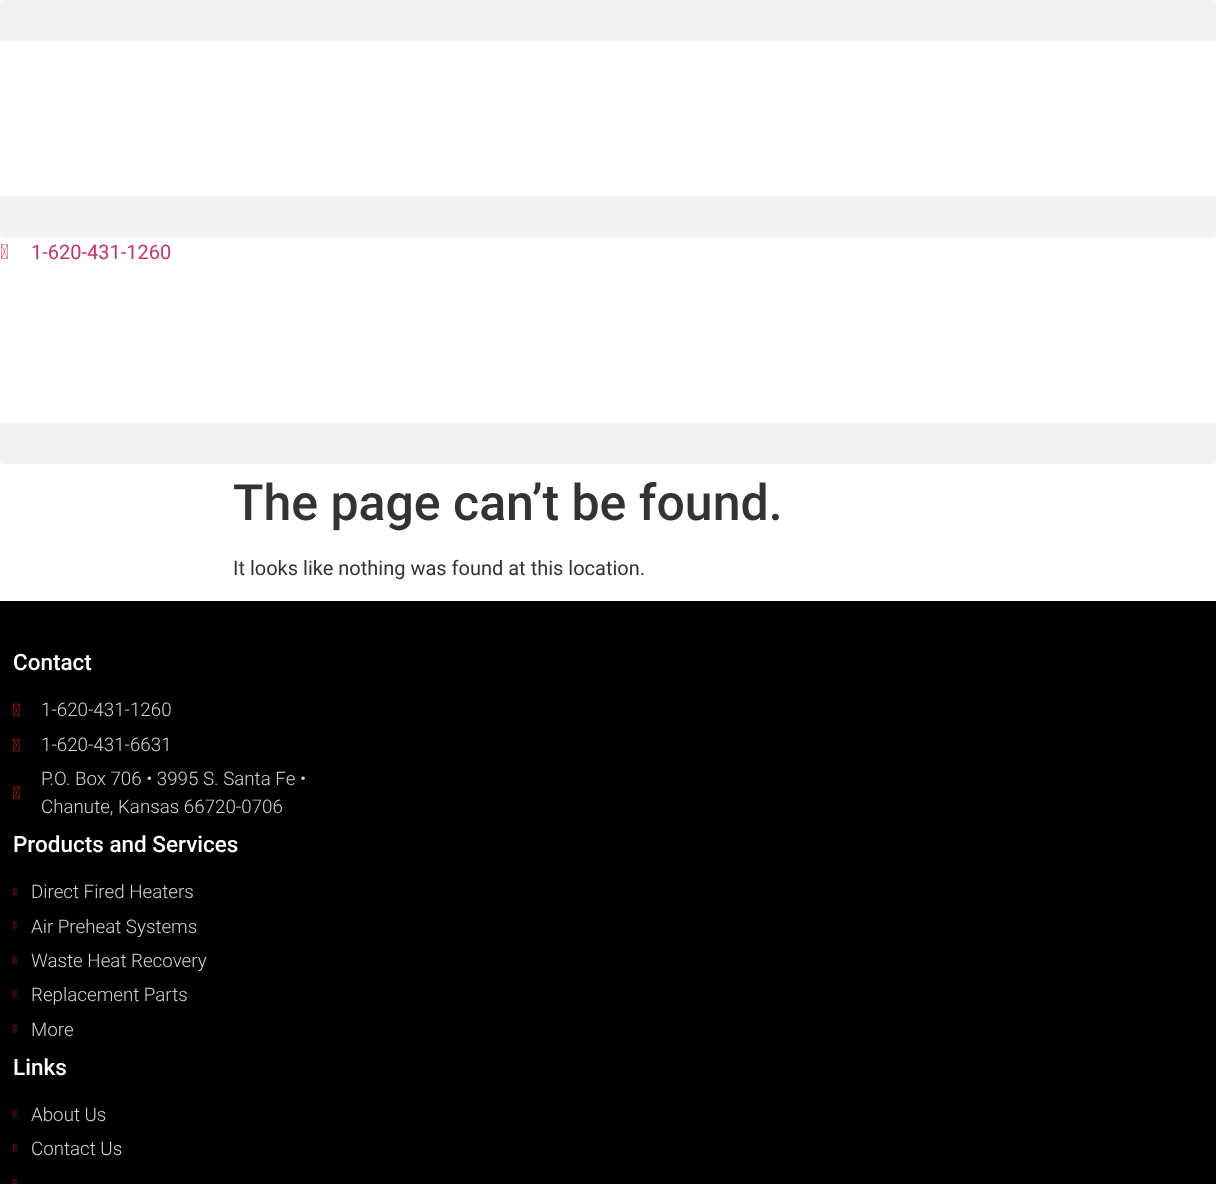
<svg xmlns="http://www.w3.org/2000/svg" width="1216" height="1184">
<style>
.a{font:20px Roboto;fill:#c36}
.b{font:500 50px Roboto;fill:#333}
.c{font:20px Roboto;fill:#333}
.d{font:500 22.5px Roboto;fill:#fff}
.e{font:300 18.75px Roboto;fill:#d5d3d3}
</style>
<rect width="100%" height="100%" fill="#fff"/>
<rect fill="#f2f2f2" width="1216" height="41" rx="4"/>
<rect fill="#f2f2f2" y="196" width="1216" height="42" rx="4"/>
<image href="1.png" x="0" y="244" width="8" height="15"/>
<rect fill="#f2f2f2" y="423" width="1216" height="41" rx="4"/>
<path fill="#000" d="M0 601h1216v583H0z"/>
<image href="2.png" x="13" y="703" width="7" height="14"/>
<image href="2.png" x="13" y="738" width="7" height="14"/>
<image href="3.png" x="13" y="786" width="7" height="13"/>
<image href="4.png" x="13" y="887" width="4" height="8"/>
<image href="5.png" x="13" y="921" width="4" height="8"/>
<image href="5.png" x="13" y="956" width="4" height="8"/>
<image href="6.png" x="13" y="990" width="4" height="8"/>
<image href="6.png" x="13" y="1025" width="4" height="8"/>
<image href="6.png" x="13" y="1110" width="4" height="8"/>
<image href="7.png" x="13" y="1144" width="4" height="8"/>
<image href="8.png" x="13" y="1179" width="4" height="5"/>
<text class="a" x="31" y="259">1-620-431-1260</text>
<text class="b" x="233" y="520">The page can’t be found.</text>
<text class="c" x="233" y="575">It looks like nothing was found at this location.</text>
<text class="d" x="13" y="670">Contact</text>
<text class="e" x="41" y="716">1-620-431-1260</text>
<text class="e" x="41" y="751">1-620-431-6631</text>
<text class="e" x="41" y="785">P.O. Box 706 • 3995 S. Santa Fe •</text>
<text class="e" x="41" y="813">Chanute, Kansas 66720-0706</text>
<text class="d" x="13" y="852">Products and Services</text>
<text class="e" x="31" y="898">Direct Fired Heaters</text>
<text class="e" x="31" y="933">Air Preheat Systems</text>
<text class="e" x="31" y="967">Waste Heat Recovery</text>
<text class="e" x="31" y="1001">Replacement Parts</text>
<text class="e" x="31" y="1036">More</text>
<text class="d" x="13" y="1075">Links</text>
<text class="e" x="31" y="1121">About Us</text>
<text class="e" x="31" y="1155">Contact Us</text>
</svg>
